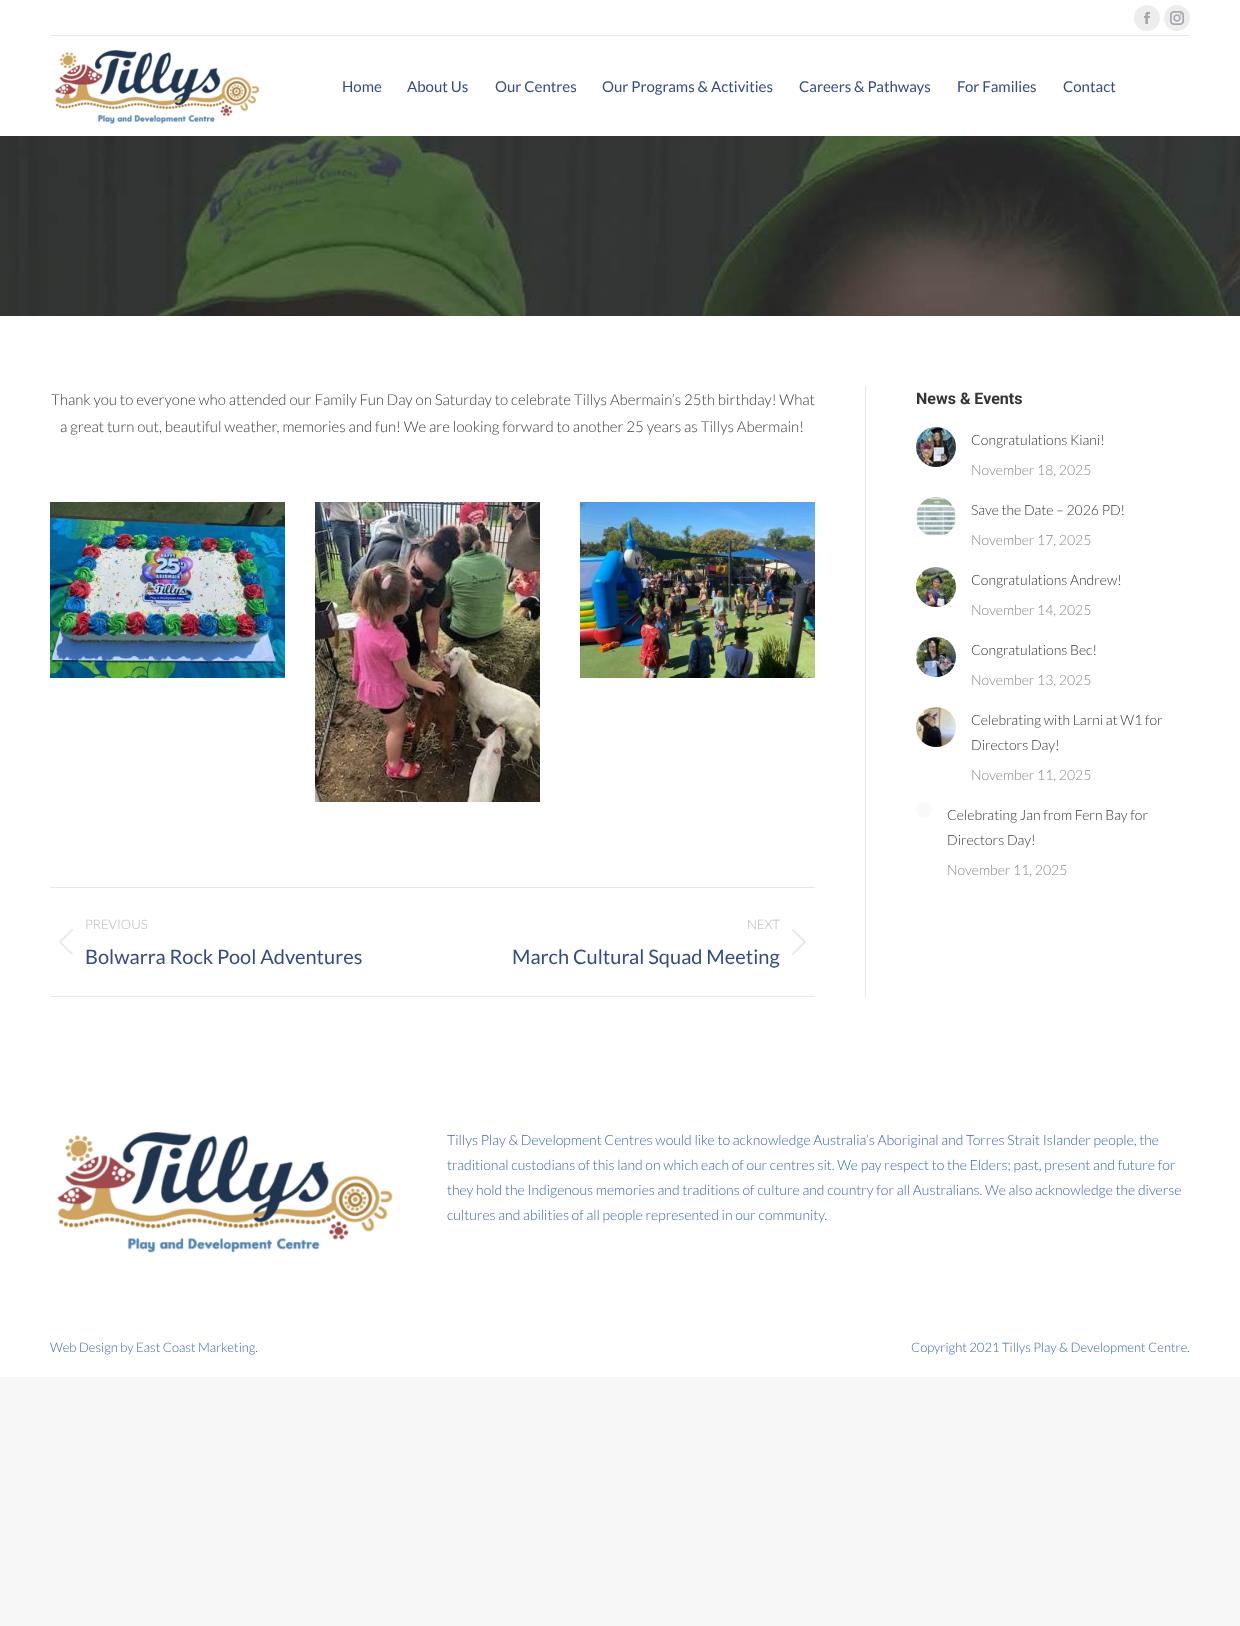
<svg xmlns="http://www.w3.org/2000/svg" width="1240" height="1626">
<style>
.a{font:15px Lato;fill:#334b87}
.b{font:300 15px Lato;fill:#3a3a3a}
.c{font:300 13px Lato;fill:#b4b5bb}
.d{font:20px Lato;fill:#334b87}
.e{font:bold 16px Roboto;fill:#333}
.f{font:300 14px Lato;fill:#333}
.g{font:300 14px Lato;fill:#85868c}
.h{font:300 14px Lato;fill:#3862c4}
.i{font:300 13px Lato;fill:#3862c4}
</style>
<rect width="100%" height="100%" fill="#f7f7f7"/>
<path fill="#fff" d="M0 0h1240v1377H0z"/>
<circle fill="#ededee" cx="1147" cy="18" r="13"/>
<image href="1.png" x="1144" y="12" width="6" height="12"/>
<circle fill="#ededee" cx="1177" cy="18" r="13"/>
<image href="2.png" x="1170" y="11" width="14" height="14"/>
<path fill="#e7e7e7" d="M50 35h1140v1H50z"/>
<image href="3.png" x="54" y="50" width="206" height="74"/>
<image href="4.png" x="0" y="136" width="1240" height="180"/>
<image href="5.png" x="50" y="502" width="235" height="176"/>
<image href="6.png" x="315" y="502" width="225" height="300"/>
<image href="7.png" x="580" y="502" width="235" height="176"/>
<path fill="#e7e7e7" d="M50 887h765v1H50z"/>
<path fill="#e7e7e7" d="M50 996h765v1H50z"/>
<image href="8.png" x="59" y="929" width="14" height="26"/>
<image href="9.png" x="792" y="929" width="14" height="26"/>
<path fill="#e7e7e7" d="M865 386h1v611H865z"/>
<image href="10.png" x="916" y="427" width="40" height="40"/>
<image href="11.png" x="916" y="497" width="40" height="40"/>
<image href="12.png" x="916" y="567" width="40" height="40"/>
<image href="13.png" x="916" y="637" width="40" height="40"/>
<image href="14.png" x="916" y="707" width="40" height="40"/>
<circle fill="#f9f9f9" cx="924" cy="810" r="8"/>
<image href="15.png" x="57" y="1132" width="336" height="121"/>
<text class="a" x="342" y="92">Home</text>
<text class="a" x="407" y="92">About Us</text>
<text class="a" x="495" y="92">Our Centres</text>
<text class="a" x="602" y="92">Our Programs &amp; Activities</text>
<text class="a" x="799" y="92">Careers &amp; Pathways</text>
<text class="a" x="957" y="92">For Families</text>
<text class="a" x="1063" y="92">Contact</text>
<text class="b" x="51" y="405">Thank you to everyone who attended our Family Fun Day on Saturday to celebrate Tillys Abermain’s 25th birthday! What</text>
<text class="b" x="60" y="432">a great turn out, beautiful weather, memories and fun! We are looking forward to another 25 years as Tillys Abermain!</text>
<text class="c" x="85" y="929">PREVIOUS</text>
<text class="d" x="85" y="964">Bolwarra Rock Pool Adventures</text>
<text class="c" x="747" y="929">NEXT</text>
<text class="d" x="512" y="964">March Cultural Squad Meeting</text>
<text class="e" x="916" y="404">News &amp; Events</text>
<text class="f" x="971" y="445">Congratulations Kiani!</text>
<text class="g" x="971" y="475">November 18, 2025</text>
<text class="f" x="971" y="515">Save the Date – 2026 PD!</text>
<text class="g" x="971" y="545">November 17, 2025</text>
<text class="f" x="971" y="585">Congratulations Andrew!</text>
<text class="g" x="971" y="615">November 14, 2025</text>
<text class="f" x="971" y="655">Congratulations Bec!</text>
<text class="g" x="971" y="685">November 13, 2025</text>
<text class="f" x="971" y="725">Celebrating with Larni at W1 for</text>
<text class="f" x="971" y="750">Directors Day!</text>
<text class="g" x="971" y="780">November 11, 2025</text>
<text class="f" x="947" y="820">Celebrating Jan from Fern Bay for</text>
<text class="f" x="947" y="845">Directors Day!</text>
<text class="g" x="947" y="875">November 11, 2025</text>
<text class="h" x="447" y="1145">Tillys Play &amp; Development Centres would like to acknowledge Australia’s Aboriginal and Torres Strait Islander people, the</text>
<text class="h" x="447" y="1170">traditional custodians of this land on which each of our centres sit. We pay respect to the Elders; past, present and future for</text>
<text class="h" x="447" y="1195">they hold the Indigenous memories and traditions of culture and country for all Australians. We also acknowledge the diverse</text>
<text class="h" x="447" y="1220">cultures and abilities of all people represented in our community.</text>
<text class="i" x="50" y="1352">Web Design by East Coast Marketing.</text>
<text class="i" x="911" y="1352">Copyright 2021 Tillys Play &amp; Development Centre.</text>
</svg>
